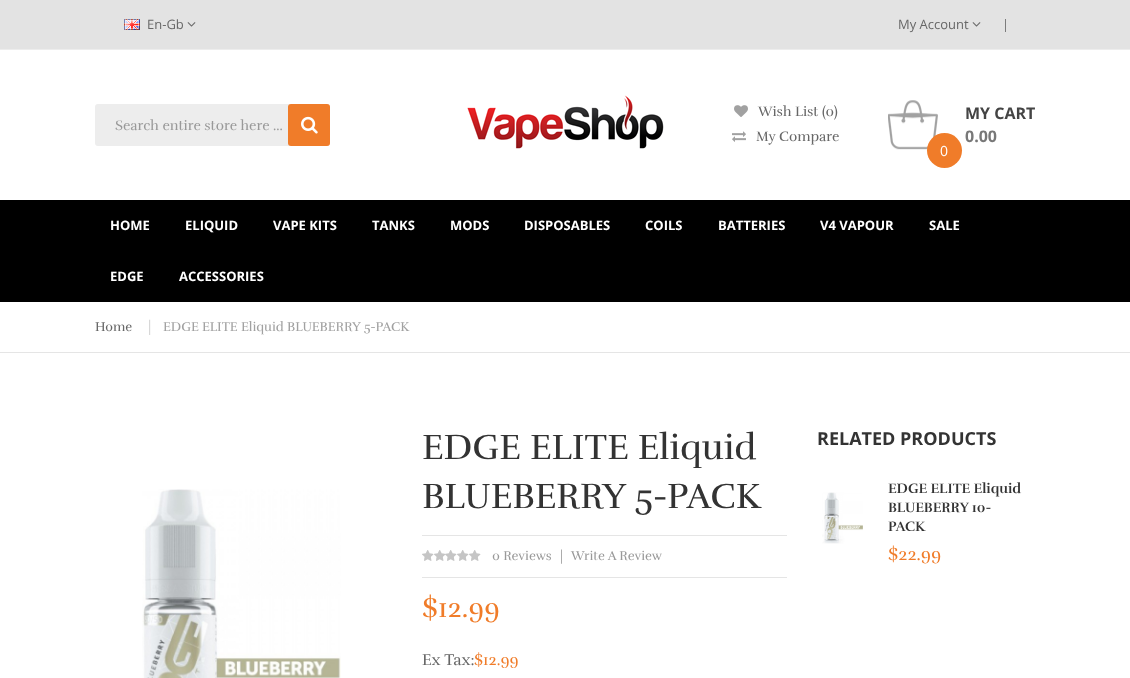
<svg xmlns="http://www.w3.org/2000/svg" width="1130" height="678">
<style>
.a{font:13px Open Sans;fill:#676767}
.b{font:14px Rufina;fill:#999}
.c{font:14px Rufina;fill:#676767}
.d{font:bold 16px Open Sans;fill:#444}
.e{font:bold 16px Open Sans;fill:#787878}
.f{font:14px Open Sans;fill:#fff}
.g{font:bold 13px Open Sans;fill:#fff}
.h{font:13px Rufina;fill:#676767}
.i{font:14px Rufina;fill:#ccc}
.j{font:13px Rufina;fill:#a1a1a1}
.k{font:36px Rufina;fill:#333}
.l{font:13px Rufina;fill:#999}
.m{font:28px Rufina;fill:#f07c29}
.n{font:16px Rufina;fill:#676767}
.o{font:16px Rufina;fill:#f07c29}
.p{font:bold 18px Open Sans;fill:#333}
.q{font:bold 14px Rufina;fill:#333}
.r{font:18px Rufina;fill:#f07c29}
</style>
<rect width="100%" height="100%" fill="#fff"/>
<path fill="#e3e3e3" d="M0 0h1130v49H0z"/>
<path fill="#ededed" d="M0 49h1130v1H0z"/>
<image href="1.png" x="124" y="19" width="16" height="11"/>
<image href="2.png" x="187" y="22" width="9" height="5"/>
<image href="2.png" x="972" y="22" width="9" height="5"/>
<path fill="#7c7c7c" d="M1005 19h1v13H1005z"/>
<rect fill="#ededed" x="95" y="104" width="235" height="42" rx="3"/>
<rect fill="#f07c29" x="288" y="104" width="42" height="42" rx="3"/>
<image href="3.png" x="301" y="116" width="17" height="18"/>
<image href="4.png" x="467" y="95" width="197" height="54"/>
<image href="5.png" x="734" y="105" width="14" height="12"/>
<image href="6.png" x="732" y="131" width="14" height="11"/>
<image href="7.png" x="888" y="100" width="50" height="50"/>
<circle fill="#f07c29" cx="944.5" cy="150.5" r="17.5"/>
<path fill="#000" d="M0 200h1130v102H0z"/>
<path fill="#e5e5e5" d="M0 352h1130v1H0z"/>
<image href="8.png" x="142" y="489" width="199" height="189"/>
<path fill="#e5e5e5" d="M422 535h365v1H422z"/>
<path fill="#e5e5e5" d="M422 577h365v1H422z"/>
<image href="9.png" x="422" y="550" width="59" height="11"/>
<image href="10.png" x="822" y="492" width="41" height="52"/>
<text class="a" x="147" y="29">En-Gb</text>
<text class="a" x="898" y="29">My Account</text>
<text class="b" x="115" y="130">Search entire store here ...</text>
<text class="c" x="758" y="116">Wish List (0)</text>
<text class="c" x="756" y="141">My Compare</text>
<text class="d" x="965" y="119">MY CART</text>
<text class="e" x="965" y="142">0.00</text>
<text class="f" x="940" y="156">0</text>
<text class="g" x="110" y="230">HOME</text>
<text class="g" x="185" y="230">ELIQUID</text>
<text class="g" x="273" y="230">VAPE KITS</text>
<text class="g" x="372" y="230">TANKS</text>
<text class="g" x="450" y="230">MODS</text>
<text class="g" x="524" y="230">DISPOSABLES</text>
<text class="g" x="645" y="230">COILS</text>
<text class="g" x="718" y="230">BATTERIES</text>
<text class="g" x="820" y="230">V4 VAPOUR</text>
<text class="g" x="929" y="230">SALE</text>
<text class="g" x="110" y="281">EDGE</text>
<text class="g" x="179" y="281">ACCESSORIES</text>
<text class="h" x="95" y="331">Home</text>
<text class="i" x="148" y="331">|</text>
<text class="j" x="163" y="331">EDGE ELITE Eliquid BLUEBERRY 5-PACK</text>
<text class="k" x="422" y="459">EDGE ELITE Eliquid</text>
<text class="k" x="422" y="508">BLUEBERRY 5-PACK</text>
<text class="l" x="492" y="560">0 Reviews</text>
<text class="l" x="560" y="560">|</text>
<text class="l" x="571" y="560">Write A Review</text>
<text class="m" x="422" y="617">$12.99</text>
<text class="n" x="422" y="665">Ex Tax:</text>
<text class="o" x="474" y="665">$12.99</text>
<text class="p" x="817" y="445">RELATED PRODUCTS</text>
<text class="q" x="888" y="493">EDGE ELITE Eliquid</text>
<text class="q" x="888" y="512">BLUEBERRY 10-</text>
<text class="q" x="888" y="531">PACK</text>
<text class="r" x="888" y="560">$22.99</text>
</svg>
